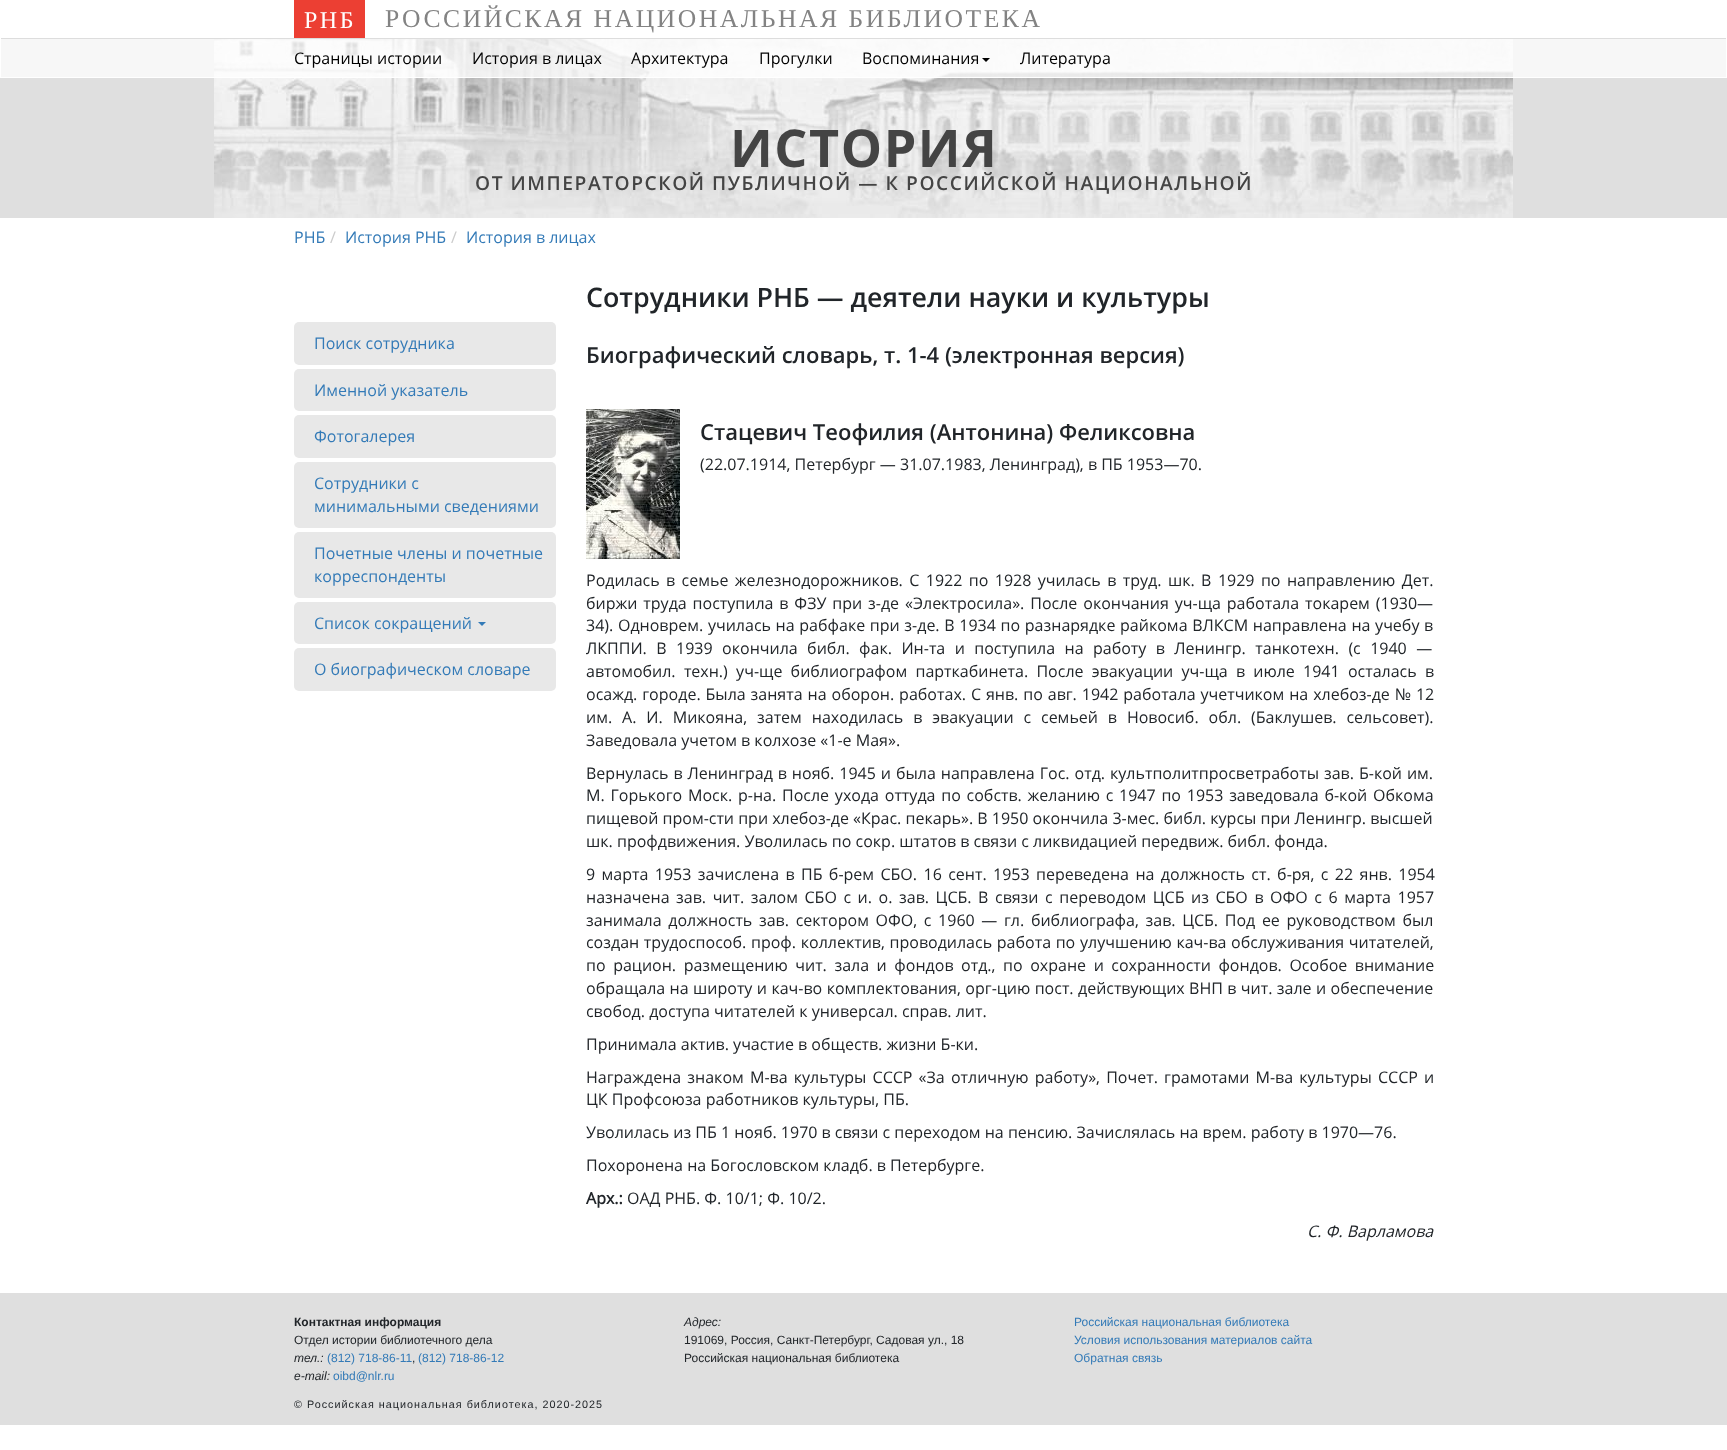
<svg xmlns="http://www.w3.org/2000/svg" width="1727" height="1450">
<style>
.a{font:24px Liberation Serif;letter-spacing:2.5px;fill:#fff}
.b{font:25.6px Liberation Serif;letter-spacing:2.55px;fill:#838383}
.c{font:16px Open Sans;fill:#000}
.d{font:bold 52px 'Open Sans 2';letter-spacing:1.55px;fill:#444}
.e{font:600 19.2px Open Sans;letter-spacing:1.55px;fill:#444}
.f{font:16px Open Sans;fill:#337ab7}
.g{font:16px Open Sans;fill:#ccc}
.h{font:600 26.8px Open Sans;fill:#212529}
.i{font:600 22px Open Sans;fill:#212529}
.j{font:16px Open Sans;fill:#212529}
.k{font:bold 16px Open Sans;fill:#212529}
.l{font:italic 16px Open Sans;fill:#212529}
.m{font:bold 12px Liberation Sans;fill:#212529}
.n{font:12px Liberation Sans;fill:#212529}
.o{font:italic 12px Liberation Sans;fill:#212529}
.p{font:12px Liberation Sans;fill:#337ab7}
.q{font:10.8px Liberation Sans;letter-spacing:1px;fill:#212529}
</style>
<rect width="100%" height="100%" fill="#fff"/>
<path fill="#ec3f33" d="M294 0h71v38H294z"/>
<path fill="#dfdfdf" d="M0 39h1727v179H0z"/>
<image href="1.png" x="214" y="39" width="1299" height="179"/>
<path fill="#ffffffbf" d="M1 39h1725v38H1z"/>
<path fill="#ddd" d="M0 38h1727v1H0z"/>
<path fill="#fff" d="M1726 38h1v40H1726z"/>
<path fill="#fff" d="M0 77h1727v1H0z"/>
<path fill="#fff" d="M0 38h1v40H0z"/>
<path fill="#000" d="M982 58h8l-4 4z"/>
<rect fill="#e8e8e8" x="294" y="322" width="262" height="43" rx="5"/>
<rect fill="#e8e8e8" x="294" y="369" width="262" height="42" rx="5"/>
<rect fill="#e8e8e8" x="294" y="415" width="262" height="43" rx="5"/>
<rect fill="#e8e8e8" x="294" y="462" width="262" height="66" rx="5"/>
<rect fill="#e8e8e8" x="294" y="532" width="262" height="66" rx="5"/>
<rect fill="#e8e8e8" x="294" y="602" width="262" height="42" rx="5"/>
<path fill="#337ab7" d="M478 622h8l-4 4z"/>
<rect fill="#e8e8e8" x="294" y="648" width="262" height="43" rx="5"/>
<image href="2.png" x="586" y="409" width="94" height="150"/>
<path fill="#dfdfdf" d="M0 1293h1727v132H0z"/>
<text class="a" x="304" y="28">РНБ</text>
<text class="b" x="385" y="27">РОССИЙСКАЯ НАЦИОНАЛЬНАЯ БИБЛИОТЕКА</text>
<text class="c" x="294" y="64">Страницы истории</text>
<text class="c" x="472" y="64">История в лицах</text>
<text class="c" x="631" y="64">Архитектура</text>
<text class="c" x="759" y="64">Прогулки</text>
<text class="c" x="862" y="64">Воспоминания</text>
<text class="c" x="1020" y="64">Литература</text>
<text class="d" x="730" y="167">ИСТОРИЯ</text>
<text class="e" x="475" y="190">ОТ ИМПЕРАТОРСКОЙ ПУБЛИЧНОЙ — К РОССИЙСКОЙ НАЦИОНАЛЬНОЙ</text>
<text class="f" x="294" y="243">РНБ</text>
<text class="g" x="330" y="243">/</text>
<text class="f" x="345" y="243">История РНБ</text>
<text class="g" x="451" y="243">/</text>
<text class="f" x="466" y="243">История в лицах</text>
<text class="h" x="586" y="307">Сотрудники РНБ — деятели науки и культуры</text>
<text class="f" x="314" y="349">Поиск сотрудника</text>
<text class="f" x="314" y="396">Именной указатель</text>
<text class="f" x="314" y="442">Фотогалерея</text>
<text class="f" x="314" y="489">Сотрудники с</text>
<text class="f" x="314" y="512">минимальными сведениями</text>
<text class="f" x="314" y="559">Почетные члены и почетные</text>
<text class="f" x="314" y="582">корреспонденты</text>
<text class="f" x="314" y="629">Список сокращений</text>
<text class="f" x="314" y="675">О биографическом словаре</text>
<text class="i" x="586" y="363">Биографический словарь, т. 1-4 (электронная версия)</text>
<text class="i" x="700" y="440">Стацевич Теофилия (Антонина) Феликсовна</text>
<text class="j" x="700" y="470">(22.07.1914, Петербург — 31.07.1983, Ленинград), в ПБ 1953—70.</text>
<text class="j" x="586" y="586" word-spacing="2.25">Родилась в семье железнодорожников. С 1922 по 1928 училась в труд. шк. В 1929 по направлению Дет.</text>
<text class="j" x="586" y="609" word-spacing="1.75">биржи труда поступила в ФЗУ при з-де «Электросила». После окончания уч-ща работала токарем (1930—</text>
<text class="j" x="586" y="631" word-spacing="0.5">34). Одноврем. училась на рабфаке при з-де. В 1934 по разнарядке райкома ВЛКСМ направлена на учебу в</text>
<text class="j" x="586" y="654" word-spacing="5.25">ЛКППИ. В 1939 окончила библ. фак. Ин-та и поступила на работу в Ленингр. танкотехн. (с 1940 —</text>
<text class="j" x="586" y="677" word-spacing="4.1">автомобил. техн.) уч-ще библиографом парткабинета. После эвакуации уч-ща в июле 1941 осталась в</text>
<text class="j" x="586" y="700" word-spacing="0.75">осажд. городе. Была занята на оборон. работах. С янв. по авг. 1942 работала учетчиком на хлебоз-де № 12</text>
<text class="j" x="586" y="723" word-spacing="5.75">им. А. И. Микояна, затем находилась в эвакуации с семьей в Новосиб. обл. (Баклушев. сельсовет).</text>
<text class="j" x="586" y="746">Заведовала учетом в колхозе «1-е Мая».</text>
<text class="j" x="586" y="779" word-spacing="0.8">Вернулась в Ленинград в нояб. 1945 и была направлена Гос. отд. культполитпросветработы зав. Б-кой им.</text>
<text class="j" x="586" y="801" word-spacing="1.6">М. Горького Моск. р-на. После ухода оттуда по собств. желанию с 1947 по 1953 заведовала б-кой Обкома</text>
<text class="j" x="586" y="824">пищевой пром-сти при хлебоз-де «Крас. пекарь». В 1950 окончила 3-мес. библ. курсы при Ленингр. высшей</text>
<text class="j" x="586" y="847">шк. профдвижения. Уволилась по сокр. штатов в связи с ликвидацией передвиж. библ. фонда.</text>
<text class="j" x="586" y="880" word-spacing="2.25">9 марта 1953 зачислена в ПБ б-рем СБО. 16 сент. 1953 переведена на должность ст. б-ря, с 22 янв. 1954</text>
<text class="j" x="586" y="903" word-spacing="2.4">назначена зав. чит. залом СБО с и. о. зав. ЦСБ. В связи с переводом ЦСБ из СБО в ОФО с 6 марта 1957</text>
<text class="j" x="586" y="926" word-spacing="2.5">занимала должность зав. сектором ОФО, с 1960 — гл. библиографа, зав. ЦСБ. Под ее руководством был</text>
<text class="j" x="586" y="948" word-spacing="0.5">создан трудоспособ. проф. коллектив, проводилась работа по улучшению кач-ва обслуживания читателей,</text>
<text class="j" x="586" y="971" word-spacing="3.4">по рацион. размещению чит. зала и фондов отд., по охране и сохранности фондов. Особое внимание</text>
<text class="j" x="586" y="994" word-spacing="0.25">обращала на широту и кач-во комплектования, орг-цию пост. действующих ВНП в чит. зале и обеспечение</text>
<text class="j" x="586" y="1017">свобод. доступа читателей к универсал. справ. лит.</text>
<text class="j" x="586" y="1050">Принимала актив. участие в обществ. жизни Б-ки.</text>
<text class="j" x="586" y="1083" word-spacing="2">Награждена знаком М-ва культуры СССР «За отличную работу», Почет. грамотами М-ва культуры СССР и</text>
<text class="j" x="586" y="1105">ЦК Профсоюза работников культуры, ПБ.</text>
<text class="j" x="586" y="1138">Уволилась из ПБ 1 нояб. 1970 в связи с переходом на пенсию. Зачислялась на врем. работу в 1970—76.</text>
<text class="j" x="586" y="1171">Похоронена на Богословском кладб. в Петербурге.</text>
<text class="k" x="586" y="1204">Арх.:</text>
<text class="j" x="627" y="1204">ОАД РНБ. Ф. 10/1; Ф. 10/2.</text>
<text class="l" x="1307" y="1237">С. Ф. Варламова</text>
<text class="m" x="294" y="1326">Контактная информация</text>
<text class="n" x="294" y="1344">Отдел истории библиотечного дела</text>
<text class="o" x="294" y="1362">тел.:</text>
<text class="p" x="327" y="1362">(812) 718-86-11</text>
<text class="n" x="412" y="1362">,</text>
<text class="p" x="418" y="1362">(812) 718-86-12</text>
<text class="o" x="294" y="1380">e-mail:</text>
<text class="p" x="333" y="1380">oibd@nlr.ru</text>
<text class="o" x="684" y="1326">Адрес:</text>
<text class="n" x="684" y="1344">191069, Россия, Санкт-Петербург, Садовая ул., 18</text>
<text class="n" x="684" y="1362">Российская национальная библиотека</text>
<text class="p" x="1074" y="1326">Российская национальная библиотека</text>
<text class="p" x="1074" y="1344">Условия использования материалов сайта</text>
<text class="p" x="1074" y="1362">Обратная связь</text>
<text class="q" x="294" y="1408">© Российская национальная библиотека, 2020-2025</text>
</svg>
